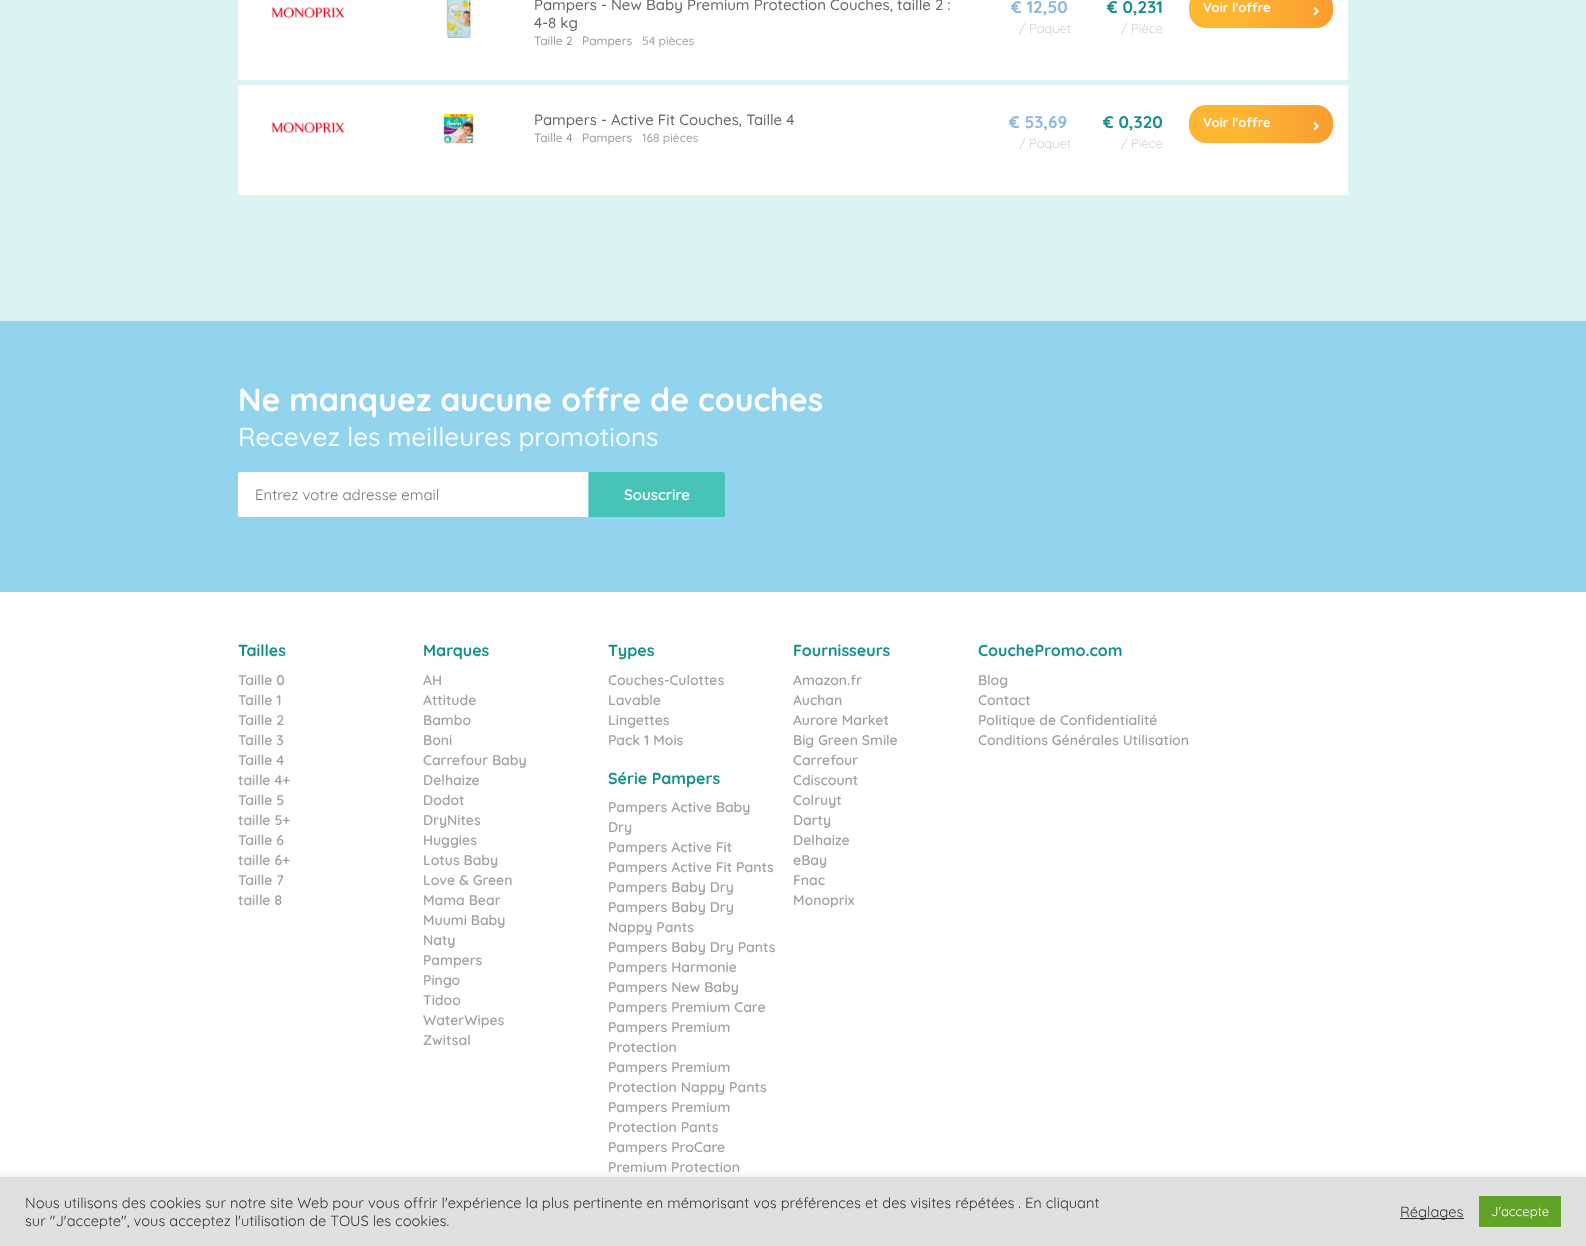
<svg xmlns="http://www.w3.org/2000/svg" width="1586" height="1246">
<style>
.a{font:500 15px Quicksand;fill:#666}
.b{font:500 12px Quicksand;fill:#999}
.c{font:500 12px Quicksand;fill:#a2a2a2}
.d{font:bold 17px Quicksand;fill:#89b8e0}
.e{font:300 13px Quicksand;fill:#c0c0c0}
.f{font:bold 17px Quicksand;fill:#15908e}
.g{font:bold 13px Quicksand;fill:#fff}
.h{font:bold 32px Quicksand;fill:#fff}
.i{font:500 26px Quicksand;fill:#f4fbfd}
.j{font:15px Quicksand;fill:#757575}
.k{font:600 15px Quicksand;fill:#fff}
.l{font:bold 16px Quicksand;fill:#15908e}
.m{font:600 14px Quicksand;fill:#a2a2a2}
.n{font:14.67px Quicksand;fill:#333}
.o{font:13px Quicksand;fill:#fff}
</style>
<defs>
<linearGradient id="g1" gradientUnits="userSpaceOnUse" x1="1189" y1="9" x2="1333" y2="9"><stop offset="0.35" stop-color="#fdb632"/><stop offset="1" stop-color="#fa9c30"/></linearGradient>
<linearGradient id="g2" gradientUnits="userSpaceOnUse" x1="1189" y1="124" x2="1333" y2="124"><stop offset="0.35" stop-color="#fdb632"/><stop offset="1" stop-color="#fa9c30"/></linearGradient>
</defs>
<rect width="100%" height="100%" fill="#fff"/>
<path fill="#dbf4f3" d="M0 0h1586v321H0z"/>
<rect fill="#fff" x="238" y="-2" width="1110" height="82" rx="2"/>
<image href="1.png" x="271" y="7" width="74" height="12"/>
<image href="2.png" x="446" y="0" width="26" height="38"/>
<rect fill="url(#g1)" x="1189" y="-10" width="144" height="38" rx="17"/>
<image href="3.png" x="1313" y="7" width="6" height="9"/>
<rect fill="#fff" x="238" y="85" width="1110" height="110" rx="2"/>
<image href="1.png" x="271" y="122" width="74" height="12"/>
<image href="4.png" x="443" y="113" width="31" height="31"/>
<rect fill="url(#g2)" x="1189" y="105" width="144" height="38" rx="17"/>
<image href="3.png" x="1313" y="122" width="6" height="9"/>
<path fill="#92d3ee" d="M0 321h1586v271H0z"/>
<path fill="#fff" d="M240 472h348v45h-348c-1 0-2-1-2-2v-41c0-1 1-2 2-2z"/>
<path fill="#47c4b7" d="M589 472h134c1 0 2 1 2 2v41c0 1-1 2-2 2h-134z"/>
<path fill="#acabab4d" filter="blur(5px)" d="M0 1176h1586v69H0z"/>
<path fill="#e0e0e0" d="M0 1177h1586v69H0z"/>
<path fill="#333" d="M1400 1218h64v1H1400z"/>
<path fill="#61a229" d="M1479 1196h82v31H1479z"/>
<text class="a" x="534" y="10">Pampers - New Baby Premium Protection Couches, taille 2 :</text>
<text class="a" x="534" y="28">4-8 kg</text>
<text class="b" x="534" y="45">Taille 2</text>
<text class="b" x="582" y="45">Pampers</text>
<text class="c" x="642" y="45">54 pièces</text>
<text class="d" x="1011" y="13">€ 12,50</text>
<text class="e" x="1019" y="33">/ Paquet</text>
<text class="f" x="1107" y="13">€ 0,231</text>
<text class="e" x="1121" y="33">/ Pièce</text>
<text class="g" x="1203" y="12">Voir l'offre</text>
<text class="a" x="534" y="125">Pampers - Active Fit Couches, Taille 4</text>
<text class="b" x="534" y="142">Taille 4</text>
<text class="b" x="582" y="142">Pampers</text>
<text class="c" x="642" y="142">168 pièces</text>
<text class="d" x="1009" y="128">€ 53,69</text>
<text class="e" x="1019" y="148">/ Paquet</text>
<text class="f" x="1103" y="128">€ 0,320</text>
<text class="e" x="1121" y="148">/ Pièce</text>
<text class="g" x="1203" y="127">Voir l'offre</text>
<text class="h" x="238" y="411">Ne manquez aucune offre de couches</text>
<text class="i" x="238" y="446">Recevez les meilleures promotions</text>
<text class="j" x="255" y="500">Entrez votre adresse email</text>
<text class="k" x="624" y="500">Souscrire</text>
<text class="l" x="238" y="656">Tailles</text>
<text class="m" x="238" y="685">Taille 0</text>
<text class="m" x="238" y="705">Taille 1</text>
<text class="m" x="238" y="725">Taille 2</text>
<text class="m" x="238" y="745">Taille 3</text>
<text class="m" x="238" y="765">Taille 4</text>
<text class="m" x="238" y="785">taille 4+</text>
<text class="m" x="238" y="805">Taille 5</text>
<text class="m" x="238" y="825">taille 5+</text>
<text class="m" x="238" y="845">Taille 6</text>
<text class="m" x="238" y="865">taille 6+</text>
<text class="m" x="238" y="885">Taille 7</text>
<text class="m" x="238" y="905">taille 8</text>
<text class="l" x="423" y="656">Marques</text>
<text class="m" x="423" y="685">AH</text>
<text class="m" x="423" y="705">Attitude</text>
<text class="m" x="423" y="725">Bambo</text>
<text class="m" x="423" y="745">Boni</text>
<text class="m" x="423" y="765">Carrefour Baby</text>
<text class="m" x="423" y="785">Delhaize</text>
<text class="m" x="423" y="805">Dodot</text>
<text class="m" x="423" y="825">DryNites</text>
<text class="m" x="423" y="845">Huggies</text>
<text class="m" x="423" y="865">Lotus Baby</text>
<text class="m" x="423" y="885">Love &amp; Green</text>
<text class="m" x="423" y="905">Mama Bear</text>
<text class="m" x="423" y="925">Muumi Baby</text>
<text class="m" x="423" y="945">Naty</text>
<text class="m" x="423" y="965">Pampers</text>
<text class="m" x="423" y="985">Pingo</text>
<text class="m" x="423" y="1005">Tidoo</text>
<text class="m" x="423" y="1025">WaterWipes</text>
<text class="m" x="423" y="1045">Zwitsal</text>
<text class="l" x="608" y="656">Types</text>
<text class="m" x="608" y="685">Couches-Culottes</text>
<text class="m" x="608" y="705">Lavable</text>
<text class="m" x="608" y="725">Lingettes</text>
<text class="m" x="608" y="745">Pack 1 Mois</text>
<text class="l" x="608" y="784">Série Pampers</text>
<text class="m" x="608" y="812">Pampers Active Baby</text>
<text class="m" x="608" y="832">Dry</text>
<text class="m" x="608" y="852">Pampers Active Fit</text>
<text class="m" x="608" y="872">Pampers Active Fit Pants</text>
<text class="m" x="608" y="892">Pampers Baby Dry</text>
<text class="m" x="608" y="912">Pampers Baby Dry</text>
<text class="m" x="608" y="932">Nappy Pants</text>
<text class="m" x="608" y="952">Pampers Baby Dry Pants</text>
<text class="m" x="608" y="972">Pampers Harmonie</text>
<text class="m" x="608" y="992">Pampers New Baby</text>
<text class="m" x="608" y="1012">Pampers Premium Care</text>
<text class="m" x="608" y="1032">Pampers Premium</text>
<text class="m" x="608" y="1052">Protection</text>
<text class="m" x="608" y="1072">Pampers Premium</text>
<text class="m" x="608" y="1092">Protection Nappy Pants</text>
<text class="m" x="608" y="1112">Pampers Premium</text>
<text class="m" x="608" y="1132">Protection Pants</text>
<text class="m" x="608" y="1152">Pampers ProCare</text>
<text class="m" x="608" y="1172">Premium Protection</text>
<text class="l" x="793" y="656">Fournisseurs</text>
<text class="m" x="793" y="685">Amazon.fr</text>
<text class="m" x="793" y="705">Auchan</text>
<text class="m" x="793" y="725">Aurore Market</text>
<text class="m" x="793" y="745">Big Green Smile</text>
<text class="m" x="793" y="765">Carrefour</text>
<text class="m" x="793" y="785">Cdiscount</text>
<text class="m" x="793" y="805">Colruyt</text>
<text class="m" x="793" y="825">Darty</text>
<text class="m" x="793" y="845">Delhaize</text>
<text class="m" x="793" y="865">eBay</text>
<text class="m" x="793" y="885">Fnac</text>
<text class="m" x="793" y="905">Monoprix</text>
<text class="l" x="978" y="656">CouchePromo.com</text>
<text class="m" x="978" y="685">Blog</text>
<text class="m" x="978" y="705">Contact</text>
<text class="m" x="978" y="725">Politique de Confidentialité</text>
<text class="m" x="978" y="745">Conditions Générales Utilisation</text>
<text class="n" x="25" y="1208">Nous utilisons des cookies sur notre site Web pour vous offrir l'expérience la plus pertinente en mémorisant vos préférences et des visites répétées . En cliquant</text>
<text class="n" x="25" y="1226">sur "J'accepte", vous acceptez l'utilisation de TOUS les cookies.</text>
<text class="n" x="1400" y="1217">Réglages</text>
<text class="o" x="1491" y="1216">J'accepte</text>
</svg>
